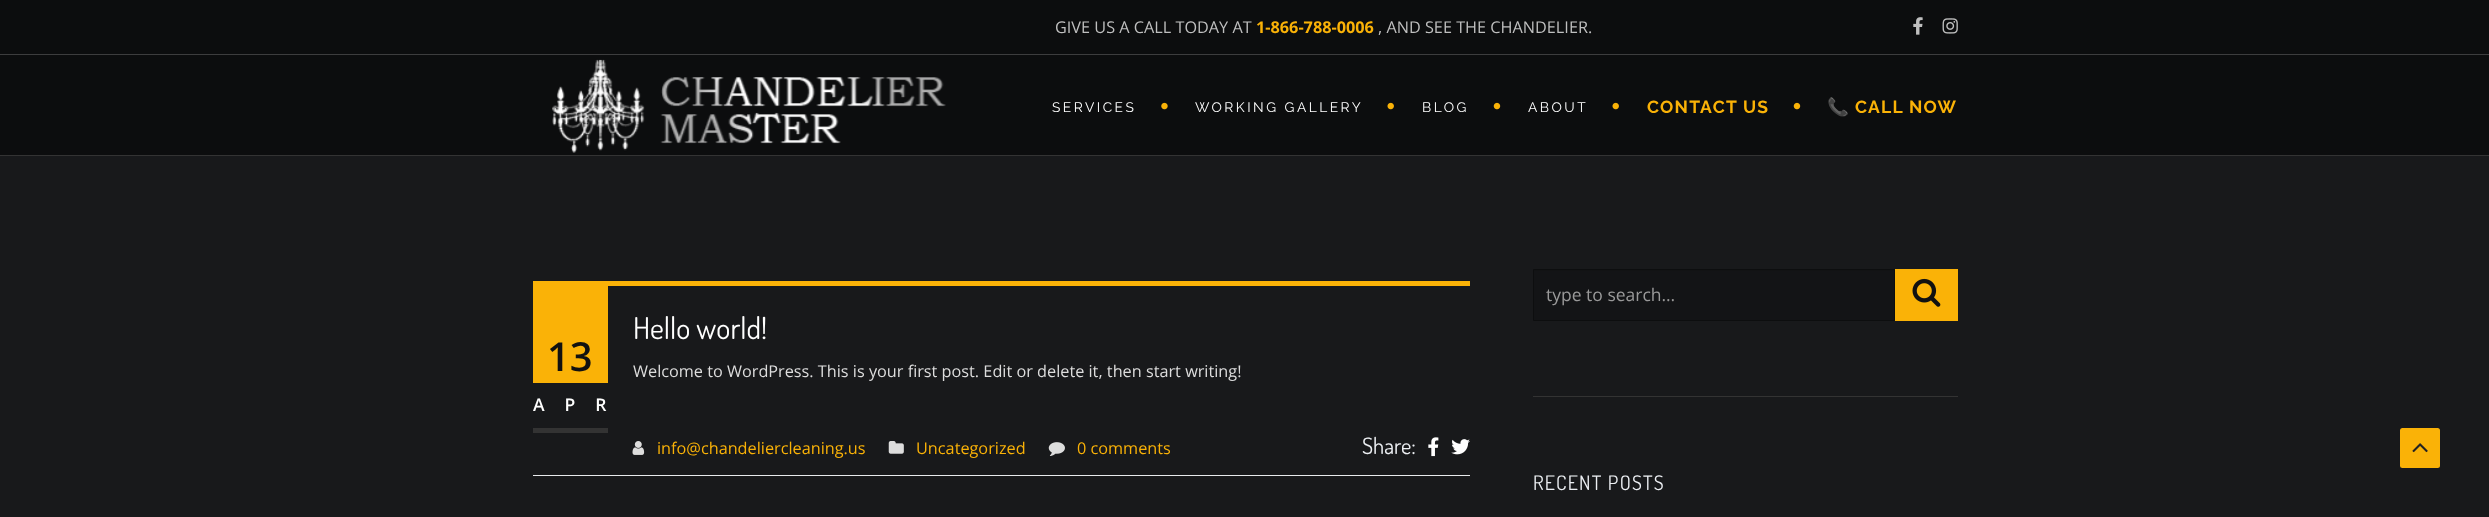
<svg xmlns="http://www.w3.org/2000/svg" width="2489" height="517">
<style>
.a{font:16.25px Open Sans;fill:#bfbfbf}
.b{font:bold 16.25px Open Sans;fill:#fab207}
.c{font:13.75px Raleway;letter-spacing:2.5px;fill:#fff}
.d{font:bold 17.5px Raleway;letter-spacing:1.25px;fill:#fab207}
.e{font:bold 17.5px Noto Color Emoji;letter-spacing:1.25px;fill:#fab207}
.f{font:600 40px Open Sans;fill:#111}
.g{font:600 17.5px Open Sans;letter-spacing:20px;fill:#fff}
.h{font:30px Dosis;fill:#fff}
.i{font:16.25px Open Sans;fill:#ddd}
.j{font:16.25px Open Sans;fill:#fab207}
.k{font:22.5px Dosis;fill:#eceff3}
.l{font:17.5px Open Sans;fill:#999}
.m{font:20px Dosis;letter-spacing:1.25px;fill:#eceff3}
</style>
<rect width="100%" height="100%" fill="#18191b"/>
<path fill="#0c0d0e" d="M0 0h2489v155H0z"/>
<path fill="#333" d="M0 155h2489v1H0z"/>
<path fill="#3d3d3e" d="M0 54h2489v1H0z"/>
<image href="1.png" x="1913" y="17" width="10" height="18"/>
<image href="2.png" x="1942" y="18" width="16" height="16"/>
<image href="3.png" x="552" y="59" width="394" height="94"/>
<image href="4.png" x="1161" y="102" width="7" height="8"/>
<image href="5.png" x="1387" y="102" width="7" height="8"/>
<image href="6.png" x="1493" y="102" width="8" height="8"/>
<image href="5.png" x="1612" y="102" width="7" height="8"/>
<image href="6.png" x="1793" y="102" width="8" height="8"/>
<path fill="#fab207" d="M533 281h937v5H533z"/>
<path fill="#fab207" d="M533 286h75v97H533z"/>
<path fill="#333" d="M533 428h75v5H533z"/>
<image href="7.png" x="632" y="441" width="13" height="14"/>
<image href="8.png" x="888" y="441" width="16" height="13"/>
<image href="9.png" x="1048" y="442" width="17" height="14"/>
<image href="10.png" x="1428" y="437" width="11" height="20"/>
<image href="11.png" x="1451" y="439" width="19" height="16"/>
<path fill="#e8eaec" d="M533 475h937v1H533z"/>
<path fill="#333" d="M1533 396h425v1H1533z"/>
<path fill="#131416" d="M1534 271h360v49H1534z"/>
<path fill="#121314" d="M1534 270h360v1H1534z"/>
<path fill="none" stroke="#0d0e0f" d="M1533.5 269.5h361v51H1533.5z"/>
<path fill="#fab207" d="M1895 269h63v52H1895z"/>
<image href="12.png" x="1912" y="278" width="29" height="29"/>
<rect fill="#fab207" x="2400" y="428" width="40" height="40" rx="2.5"/>
<image href="13.png" x="2412" y="443" width="16" height="10"/>
<text class="a" x="1055" y="33">GIVE US A CALL TODAY AT</text>
<text class="b" x="1256" y="33">1-866-788-0006</text>
<text class="a" x="1378" y="33">, AND SEE THE CHANDELIER.</text>
<text class="c" x="1052" y="112">SERVICES</text>
<text class="c" x="1195" y="112">WORKING GALLERY</text>
<text class="c" x="1422" y="112">BLOG</text>
<text class="c" x="1528" y="112">ABOUT</text>
<text class="d" x="1647" y="113">CONTACT US</text>
<text class="e" x="1827" y="113">📞</text>
<text class="d" x="1855" y="113">CALL NOW</text>
<text class="f" x="547" y="371">13</text>
<text class="g" x="533" y="411">APR</text>
<text class="h" x="633" y="339">Hello world!</text>
<text class="i" x="633" y="377">Welcome to WordPress. This is your first post. Edit or delete it, then start writing!</text>
<text class="j" x="657" y="454">info@chandeliercleaning.us</text>
<text class="j" x="916" y="454">Uncategorized</text>
<text class="j" x="1077" y="454">0 comments</text>
<text class="k" x="1362" y="454">Share:</text>
<text class="l" x="1546" y="301">type to search…</text>
<text class="m" x="1533" y="490">RECENT POSTS</text>
</svg>
